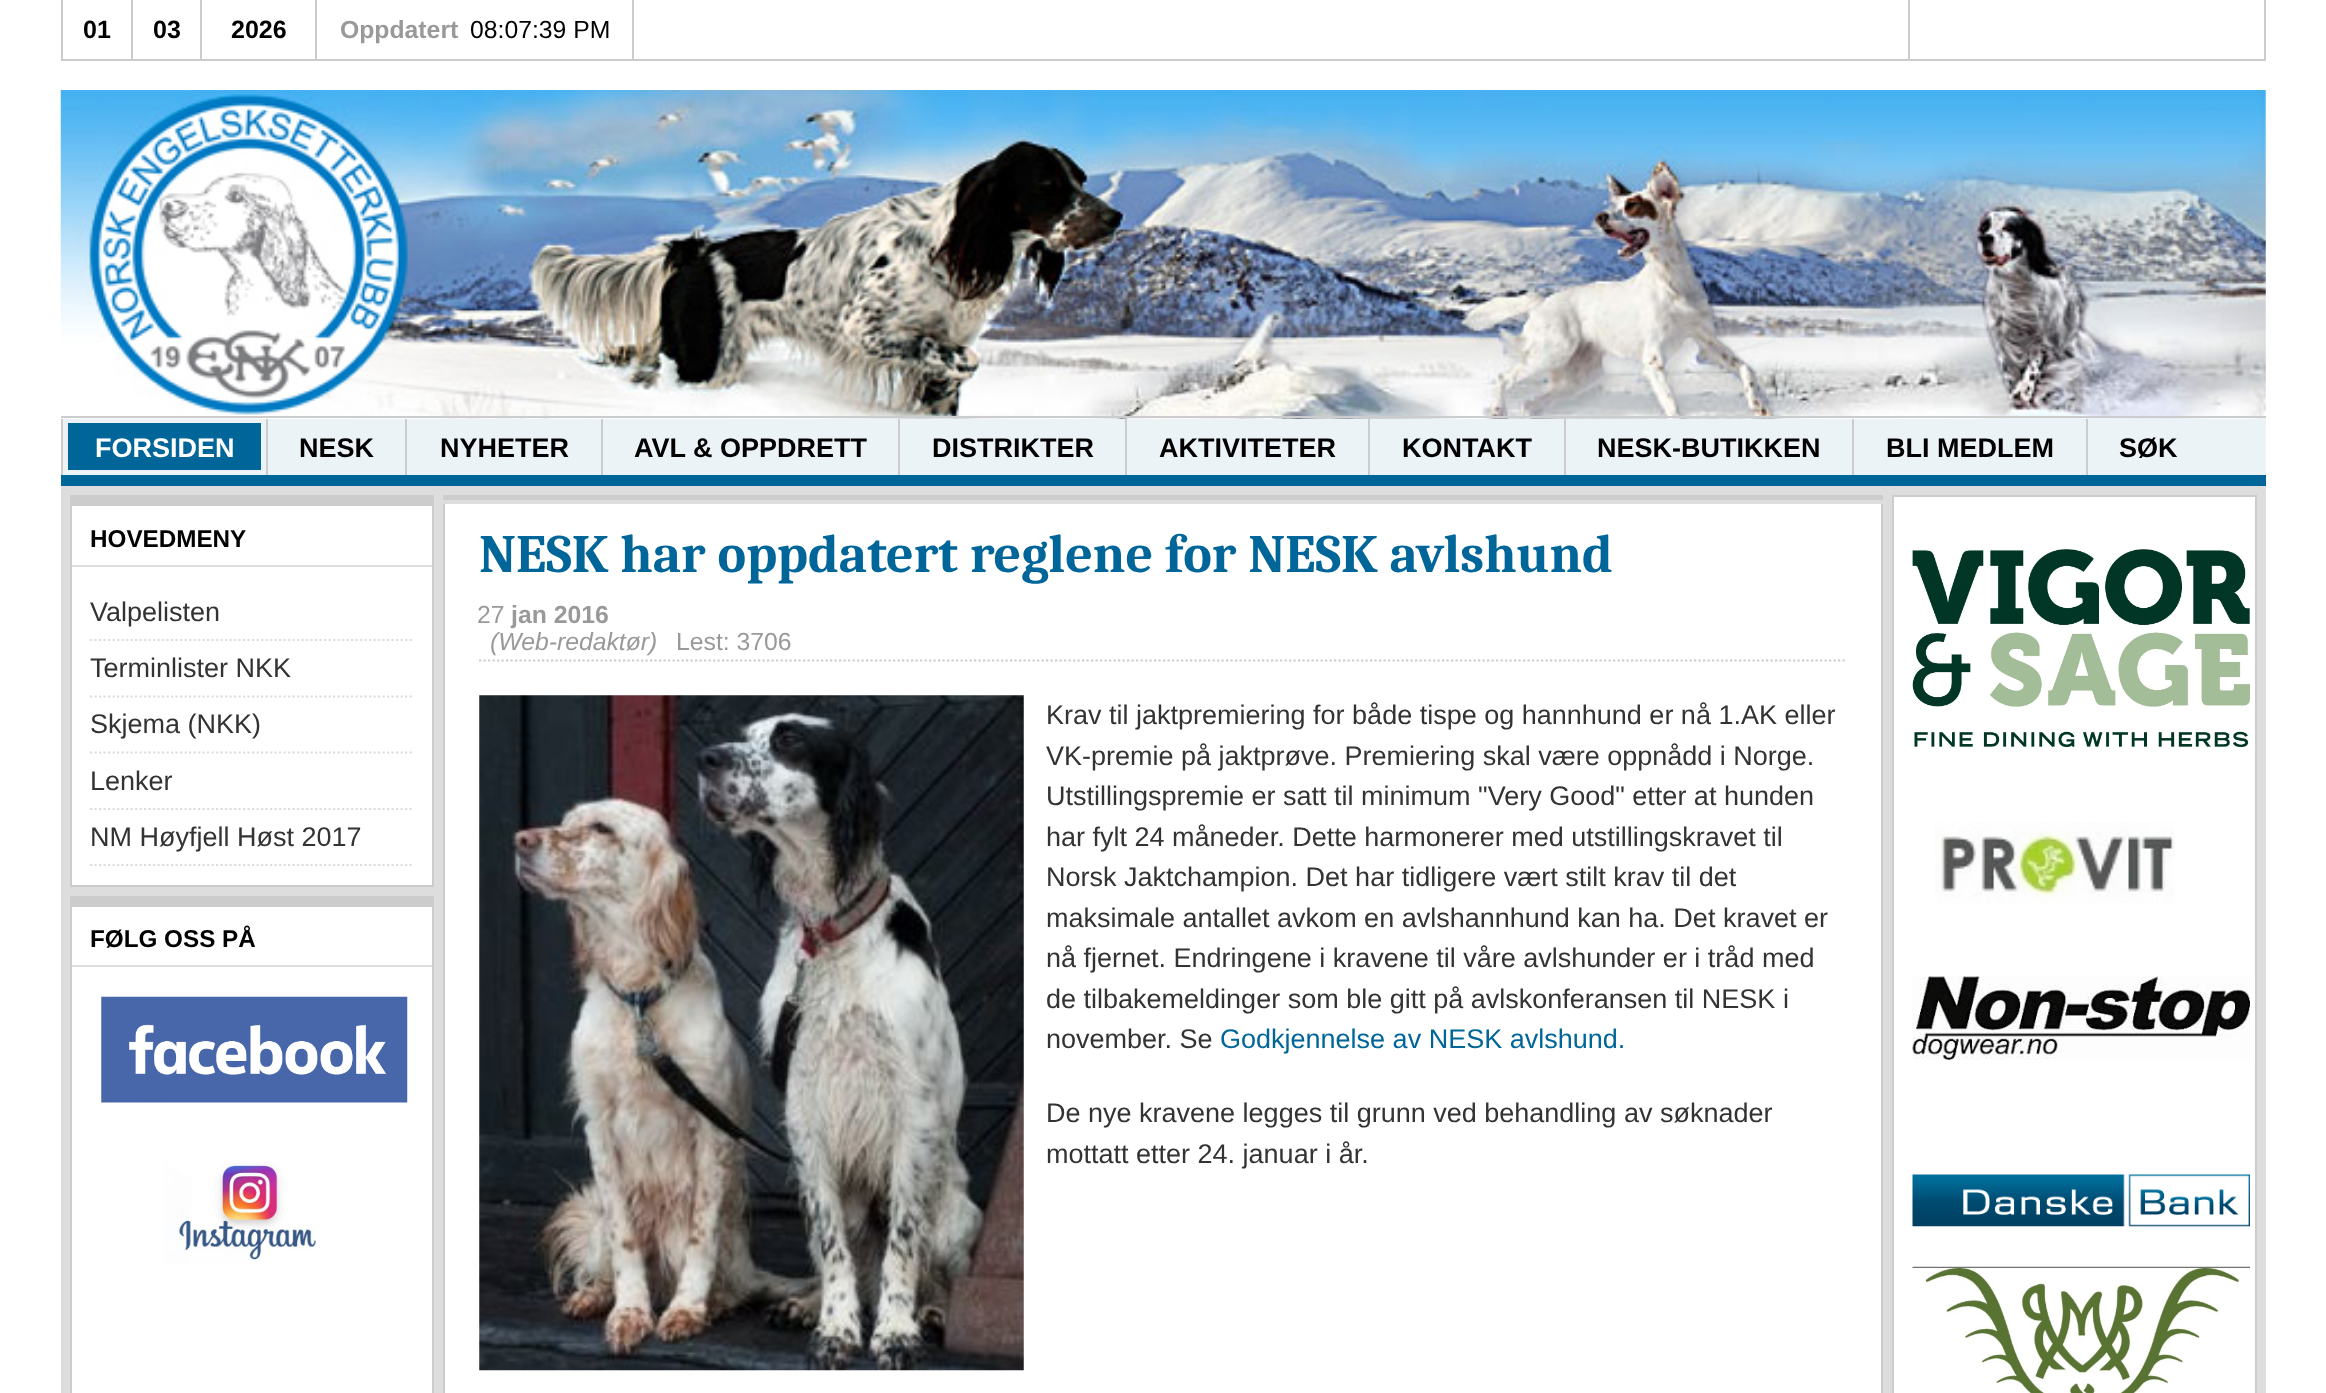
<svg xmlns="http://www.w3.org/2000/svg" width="2326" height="1393">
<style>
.a{font:bold 25px Liberation Sans;fill:#000}
.b{font:bold 24.75px Liberation Sans;fill:#999}
.c{font:24.75px Liberation Sans;fill:#000}
.d{font:bold 27px Liberation Sans;fill:#fff}
.e{font:bold 27px Liberation Sans;fill:#000}
.f{font:bold 24.25px Liberation Sans;fill:#000}
.g{font:27px Liberation Sans;fill:#333}
.h{font:bold 54px Caladea;fill:#069}
.i{font:24.75px Liberation Sans;fill:#999}
.j{font:italic 24.75px Liberation Sans;fill:#999}
.k{font:27px Liberation Sans;fill:#069}
</style>
<rect width="100%" height="100%" fill="#fff"/>
<path fill="#ccc" d="M61 59h2205v2H61z"/>
<path fill="#ccc" d="M315 0h2v59H315z"/>
<path fill="#ccc" d="M61 0h2v59H61z"/>
<path fill="#ccc" d="M131 0h2v59H131z"/>
<path fill="#ccc" d="M200 0h2v59H200z"/>
<path fill="#ccc" d="M632 0h2v59H632z"/>
<path fill="#ccc" d="M2264 0h2v59H2264z"/>
<path fill="#ccc" d="M1908 0h2v59H1908z"/>
<image href="1.png" x="60" y="90" width="2206" height="338"/>
<path fill="#ccc" d="M61 416h2205v2H61z"/>
<path fill="#ecf3f7" d="M63 419h2203v56H63z"/>
<path fill="#069" d="M61 475h2205v11H61z"/>
<path fill="#ccc" d="M61 419h2v56H61z"/>
<path fill="#069" d="M68 423h193v47H68z"/>
<path fill="#ccc" d="M266 419h2v56H266z"/>
<path fill="#ccc" d="M405 419h2v56H405z"/>
<path fill="#ccc" d="M601 419h2v56H601z"/>
<path fill="#ccc" d="M898 419h2v56H898z"/>
<path fill="#ccc" d="M1125 419h2v56H1125z"/>
<path fill="#ccc" d="M1368 419h2v56H1368z"/>
<path fill="#ccc" d="M1564 419h2v56H1564z"/>
<path fill="#ccc" d="M1852 419h2v56H1852z"/>
<path fill="#ccc" d="M2086 419h2v56H2086z"/>
<path fill="#ddd" d="M61 486h2205v907H61z"/>
<path fill="#fff" d="M72 506h360v379H72z"/>
<path fill="none" stroke="#ccc" stroke-width="2" d="M71 496h362v390H71z"/>
<path fill="#ccc" d="M72 497h360v9H72z"/>
<path fill="#ddd" d="M72 565h360v2H72z"/>
<path fill="none" stroke="#ddd" stroke-width="2.2" stroke-dasharray="2.25 2.25" d="M90 640h324"/>
<path fill="none" stroke="#ddd" stroke-width="2.2" stroke-dasharray="2.25 2.25" d="M90 696.5h324"/>
<path fill="none" stroke="#ddd" stroke-width="2.2" stroke-dasharray="2.25 2.25" d="M90 752.5h324"/>
<path fill="none" stroke="#ddd" stroke-width="2.2" stroke-dasharray="2.25 2.25" d="M90 809h324"/>
<path fill="none" stroke="#ddd" stroke-width="2.2" stroke-dasharray="2.25 2.25" d="M90 865h324"/>
<path fill="#fff" d="M72 907h360v486H72z"/>
<path fill="none" stroke="#ccc" stroke-width="2" d="M71 897h362v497H71z"/>
<path fill="#ccc" d="M72 898h360v9H72z"/>
<path fill="#ddd" d="M72 965h360v2H72z"/>
<image href="2.png" x="101" y="996" width="307" height="107"/>
<image href="3.png" x="164" y="1162" width="152" height="102"/>
<path fill="#ccc" d="M443 495h1440v5H443z"/>
<path fill="#fff" d="M445 504h1436v889H445z"/>
<path fill="#ccc" d="M1881 504h2v889H1881z"/>
<path fill="#ccc" d="M443 504h2v889H443z"/>
<path fill="none" stroke="#ccc" stroke-width="2.2" stroke-dasharray="2.25 2.25" d="M479 660.5h1368"/>
<image href="4.png" x="479" y="695" width="545" height="676"/>
<path fill="#fff" stroke="#ccc" stroke-width="2" d="M1893 496h363v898H1893z"/>
<image href="5.png" x="1912" y="549" width="338" height="198"/>
<image href="6.png" x="1935" y="822" width="240" height="82"/>
<image href="7.png" x="1912" y="976" width="338" height="84"/>
<image href="8.png" x="1912" y="1174" width="338" height="53"/>
<image href="9.png" x="1912" y="1266" width="338" height="127"/>
<text class="a" x="83" y="38">01</text>
<text class="a" x="153" y="38">03</text>
<text class="a" x="231" y="38">2026</text>
<text class="b" x="340" y="38">Oppdatert</text>
<text class="c" x="470" y="38">08:07:39 PM</text>
<text class="d" x="95" y="457">FORSIDEN</text>
<text class="e" x="299" y="457">NESK</text>
<text class="e" x="440" y="457">NYHETER</text>
<text class="e" x="634" y="457">AVL &amp; OPPDRETT</text>
<text class="e" x="932" y="457">DISTRIKTER</text>
<text class="e" x="1159" y="457">AKTIVITETER</text>
<text class="e" x="1402" y="457">KONTAKT</text>
<text class="e" x="1597" y="457">NESK-BUTIKKEN</text>
<text class="e" x="1886" y="457">BLI MEDLEM</text>
<text class="e" x="2119" y="457">SØK</text>
<text class="f" x="90" y="547">HOVEDMENY</text>
<text class="g" x="90" y="621">Valpelisten</text>
<text class="g" x="90" y="677">Terminlister NKK</text>
<text class="g" x="90" y="733">Skjema (NKK)</text>
<text class="g" x="90" y="790">Lenker</text>
<text class="g" x="90" y="846">NM Høyfjell Høst 2017</text>
<text class="f" x="90" y="947">FØLG OSS PÅ</text>
<text class="h" x="479" y="572">NESK har oppdatert reglene for NESK avlshund</text>
<text class="i" x="477" y="623">27</text>
<text class="b" x="511" y="623">jan 2016</text>
<text class="j" x="490" y="650">(Web-redaktør)</text>
<text class="i" x="676" y="650">Lest: 3706</text>
<text class="g" x="1046" y="724">Krav til jaktpremiering for både tispe og hannhund er nå 1.AK eller</text>
<text class="g" x="1046" y="765">VK-premie på jaktprøve. Premiering skal være oppnådd i Norge.</text>
<text class="g" x="1046" y="805">Utstillingspremie er satt til minimum "Very Good" etter at hunden</text>
<text class="g" x="1046" y="846">har fylt 24 måneder. Dette harmonerer med utstillingskravet til</text>
<text class="g" x="1046" y="886">Norsk Jaktchampion. Det har tidligere vært stilt krav til det</text>
<text class="g" x="1046" y="927">maksimale antallet avkom en avlshannhund kan ha. Det kravet er</text>
<text class="g" x="1046" y="967">nå fjernet. Endringene i kravene til våre avlshunder er i tråd med</text>
<text class="g" x="1046" y="1008">de tilbakemeldinger som ble gitt på avlskonferansen til NESK i</text>
<text class="g" x="1046" y="1048">november. Se</text>
<text class="k" x="1220" y="1048">Godkjennelse av NESK avlshund.</text>
<text class="g" x="1046" y="1122">De nye kravene legges til grunn ved behandling av søknader</text>
<text class="g" x="1046" y="1163">mottatt etter 24. januar i år.</text>
</svg>
